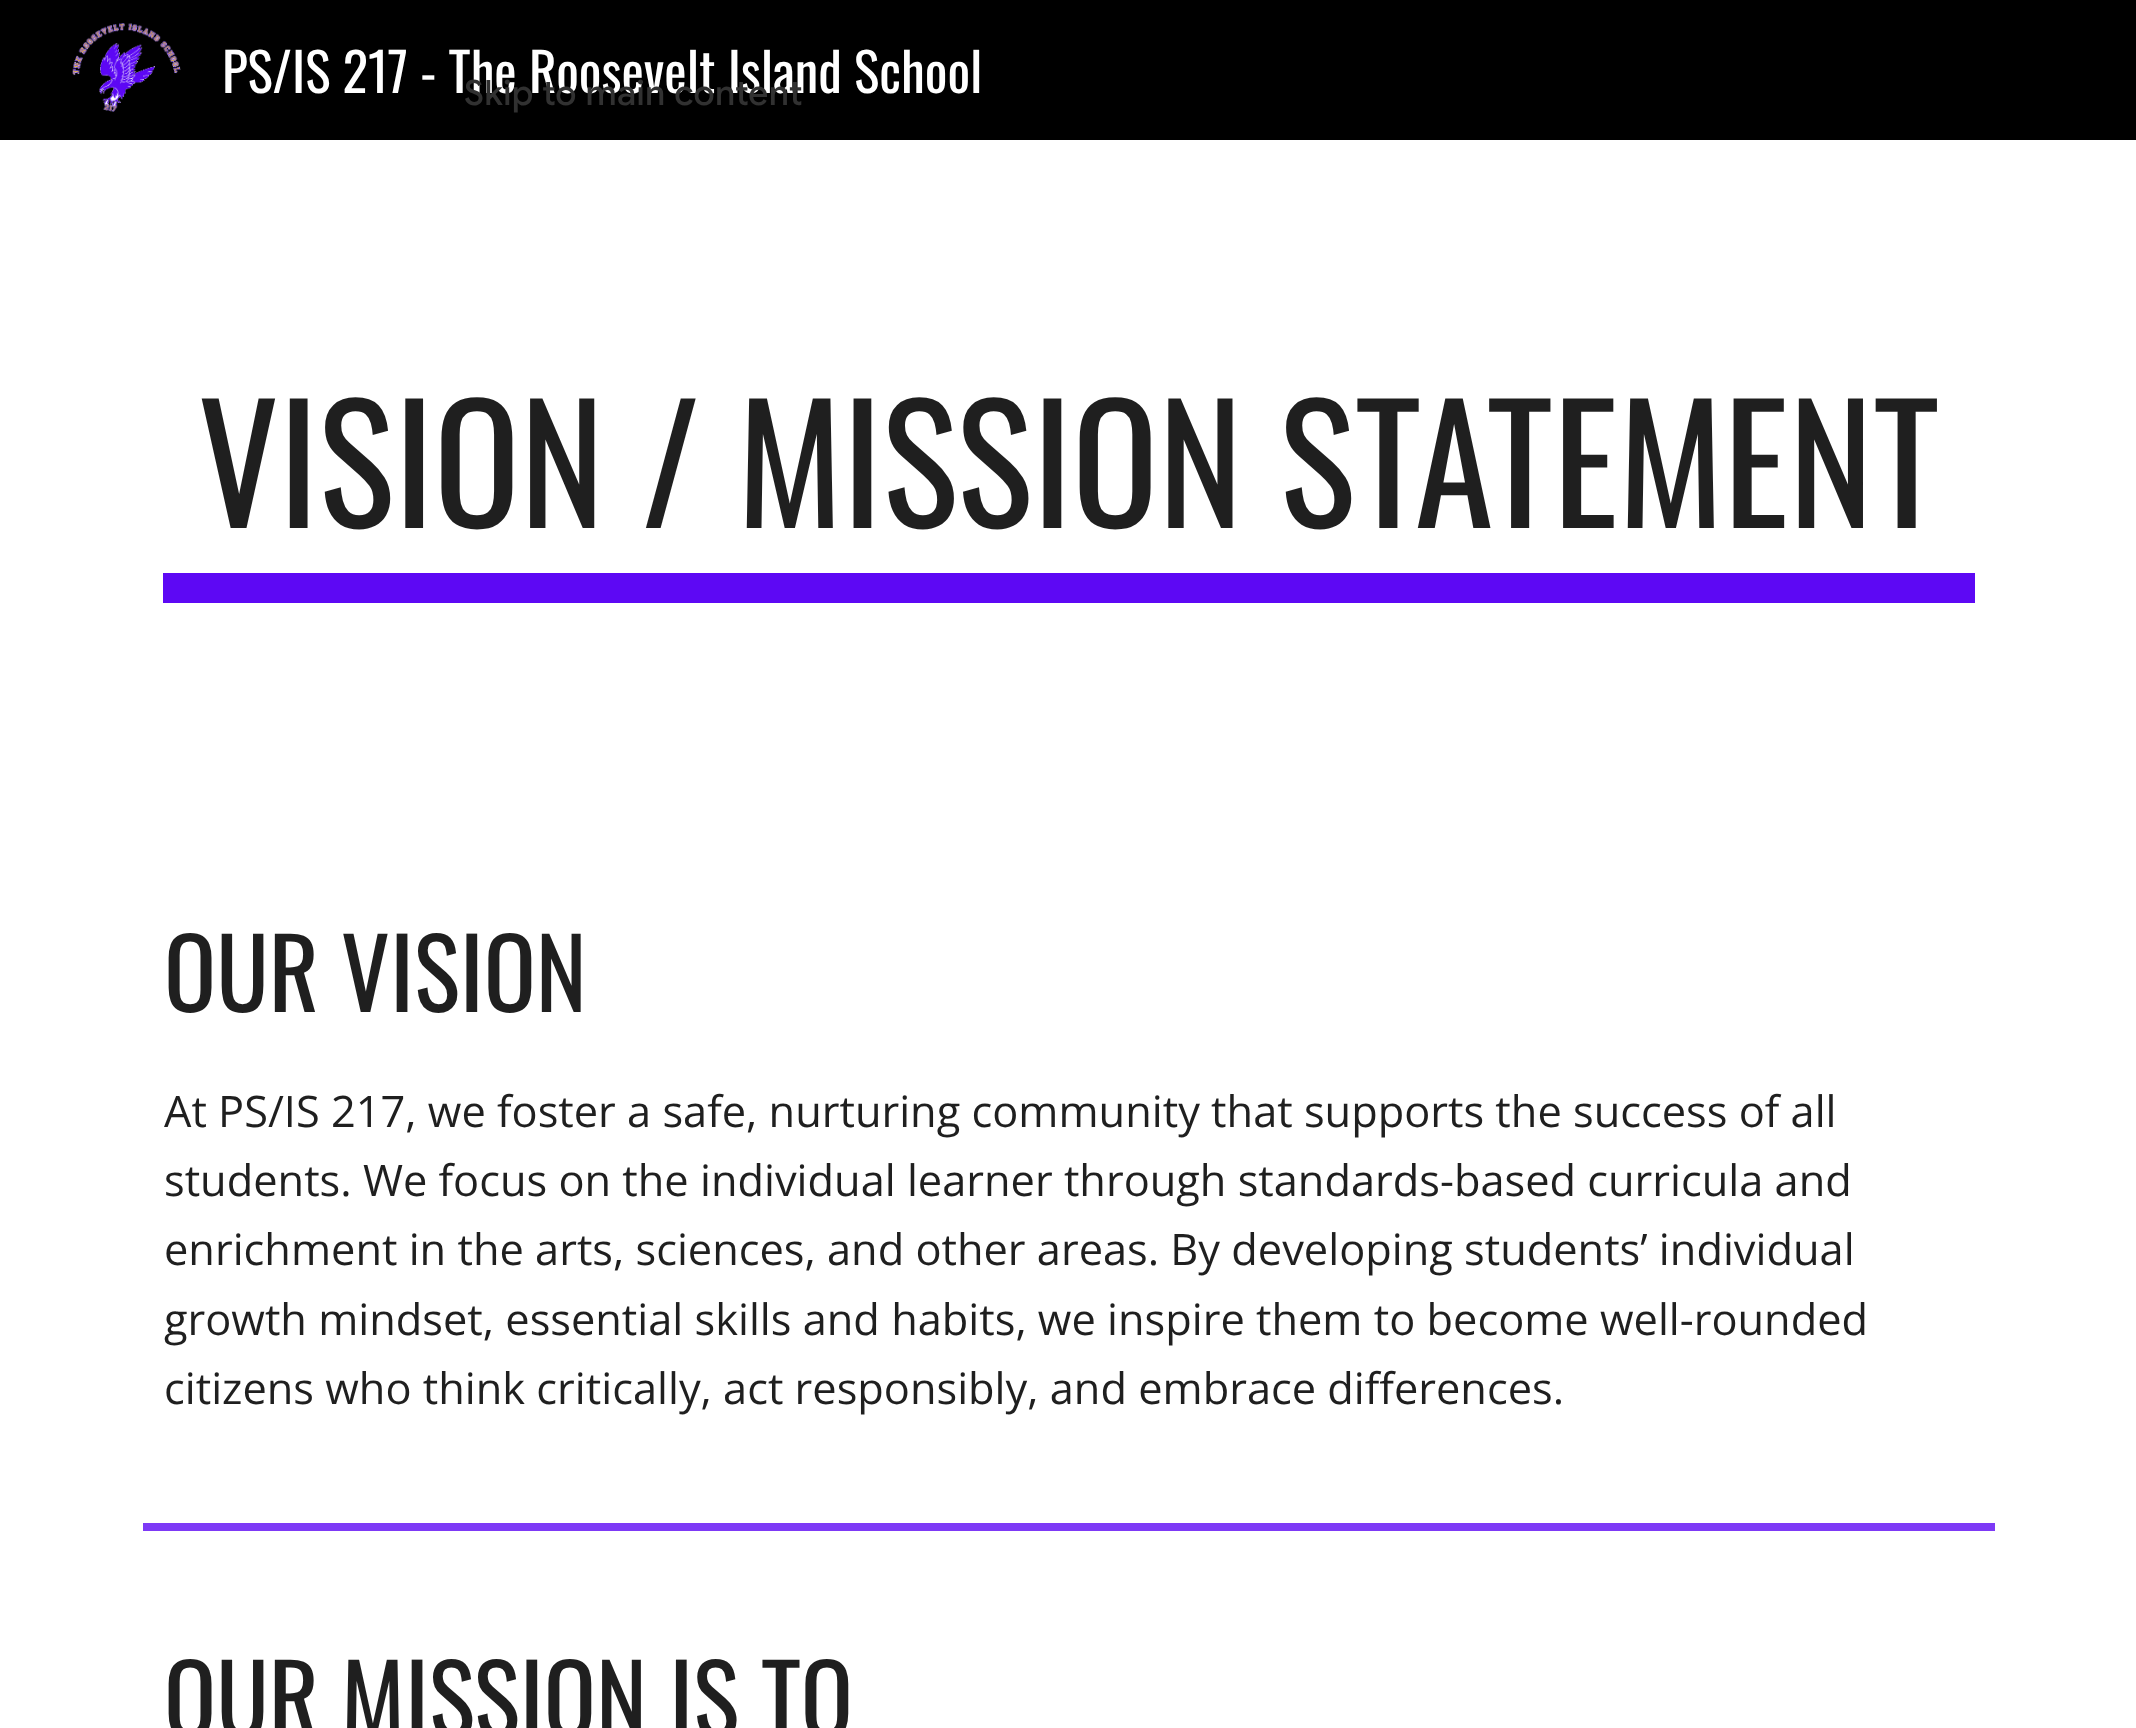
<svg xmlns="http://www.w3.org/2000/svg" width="2136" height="1728">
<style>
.a{font:53.3px Oswald;fill:#fff}
.b{font:160px Oswald;fill:#1f1f1f}
.c{font:96.75px Oswald;fill:#1f1f1f}
.d{font:43.35px Open Sans;fill:#1f1f1f}
.e{font:500 35px Google Sans;letter-spacing:0.4px;fill:#313131}
</style>
<rect width="100%" height="100%" fill="#fff"/>
<path fill="#000" d="M0 0h2136v140H0z"/>
<image href="1.png" x="72" y="23" width="109" height="89"/>
<path fill="#5d08f4" d="M163 573h1812v30H163z"/>
<path fill="#7d39f6" d="M143 1523h1852v8H143z"/>
<text class="a" x="222" y="93">PS/IS 217 - The Roosevelt Island School</text>
<text class="b" x="198" y="528">VISION / MISSION STATEMENT</text>
<text class="c" x="164" y="1012">OUR VISION</text>
<text class="d" x="164" y="1127">At PS/IS 217, we foster a safe, nurturing community that supports the success of all</text>
<text class="d" x="164" y="1196">students. We focus on the individual learner through standards-based curricula and</text>
<text class="d" x="164" y="1265">enrichment in the arts, sciences, and other areas. By developing students’ individual</text>
<text class="d" x="164" y="1335">growth mindset, essential skills and habits, we inspire them to become well-rounded</text>
<text class="d" x="164" y="1404">citizens who think critically, act responsibly, and embrace differences.</text>
<text class="c" x="164" y="1738">OUR MISSION IS TO</text>
<text class="e" x="464" y="105">Skip to main content</text>
</svg>
